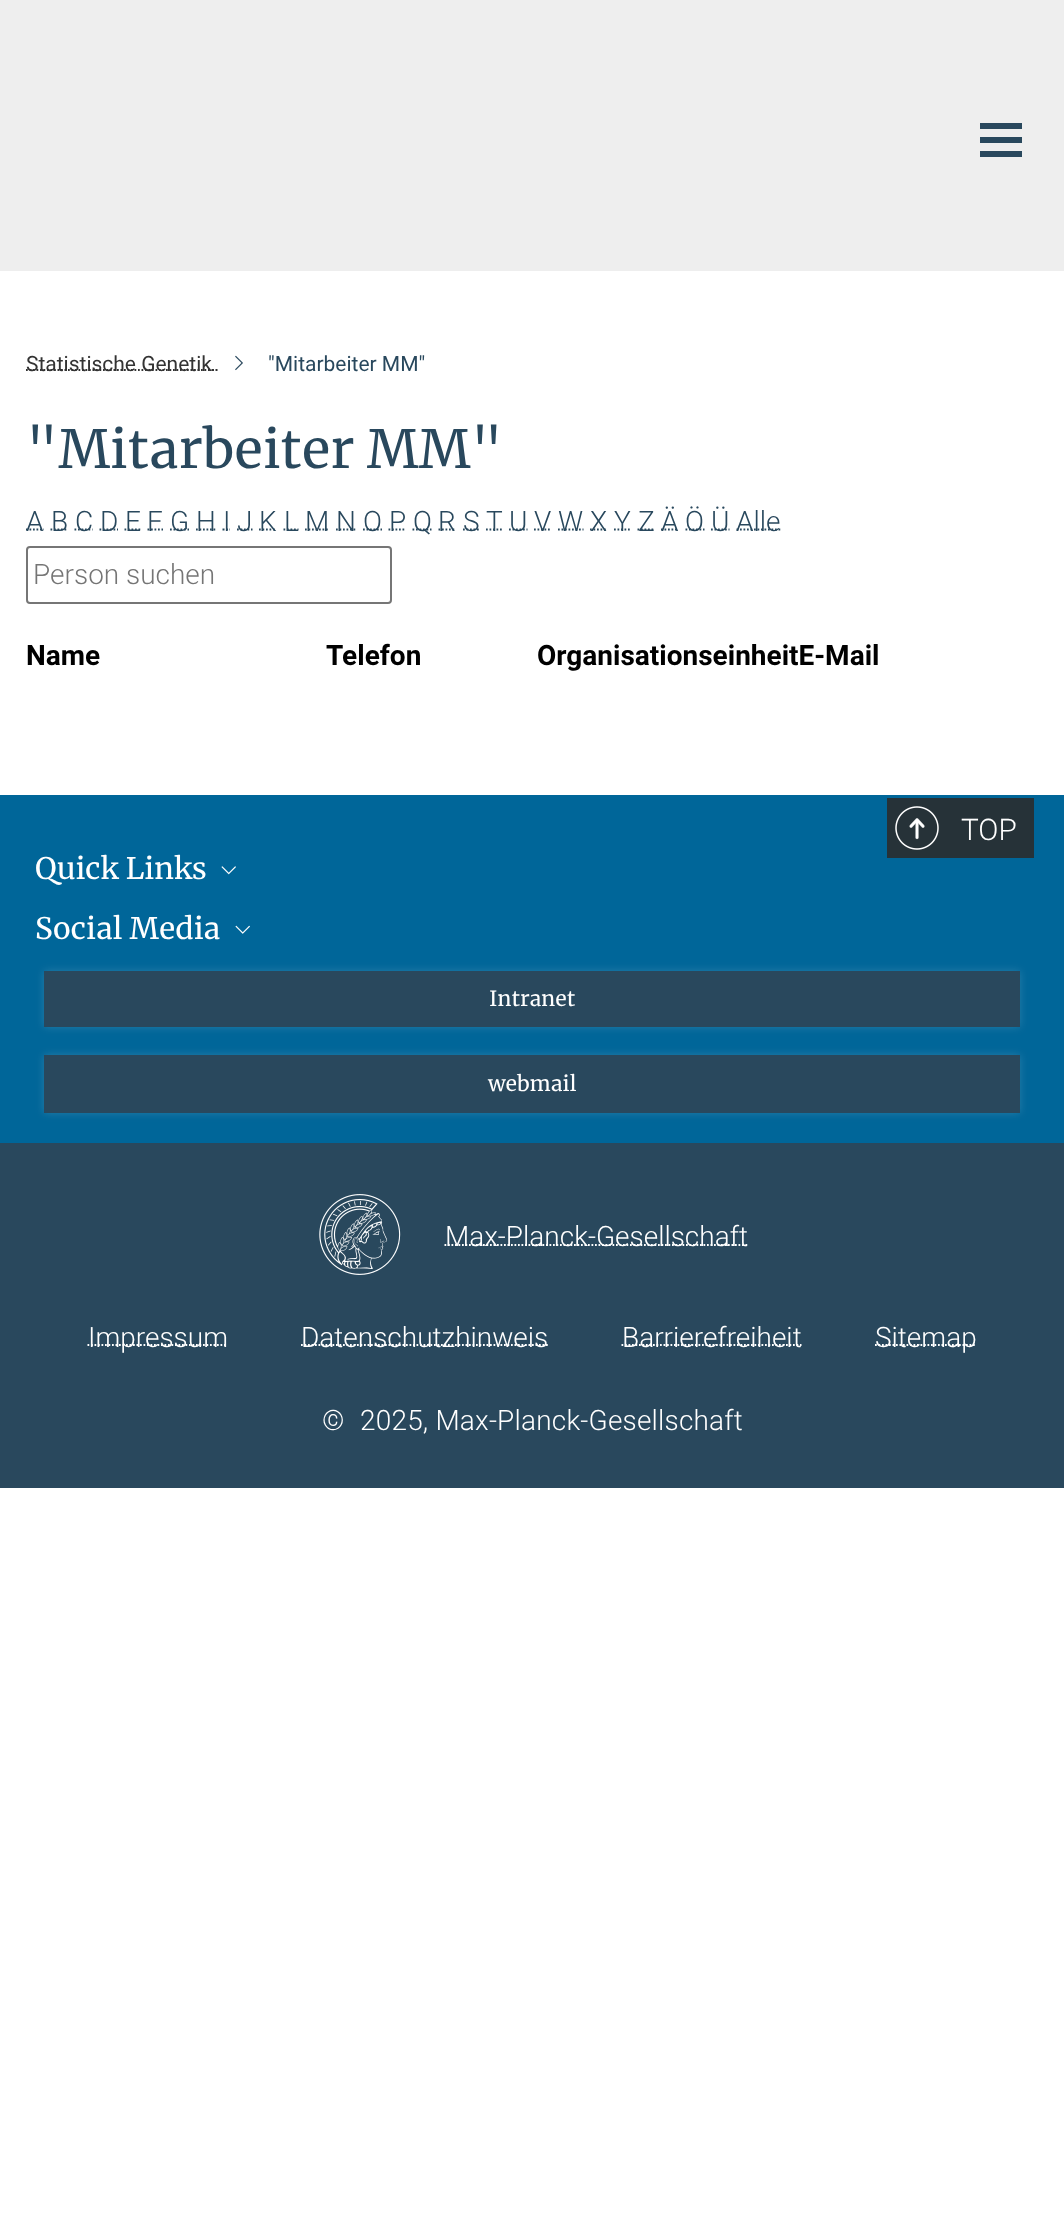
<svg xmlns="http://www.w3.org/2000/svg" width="1064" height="2213">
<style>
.a{font:21px Roboto;fill:#333}
.b{font:21px Roboto;fill:#29485d}
.c{font:52.5px Merriweather;fill:#29485d}
.d{font:300 28px Roboto;fill:#29485d}
.e{font:300 28px Roboto;fill:#757575}
.f{font:bold 28px Roboto;fill:#000}
.g{font:300 29.75px Roboto;fill:#fff}
.h{font:29.75px Merriweather;fill:#fff}
.i{font:21px Merriweather;fill:#fff}
.j{font:300 28px Roboto;fill:#fff}
.k{font:300 28px Roboto;letter-spacing:0.2px;fill:#fff}
</style>
<rect width="100%" height="100%" fill="#fff"/>
<path fill="#eee" d="M0 0h1064v271H0z"/>
<path fill="#29485d" d="M980 123h42v6H980z"/>
<path fill="#29485d" d="M980 137h42v6H980z"/>
<path fill="#29485d" d="M980 151h42v6H980z"/>
<path fill="none" stroke="#333" stroke-width="1.8" stroke-dasharray="1.75 1.75" d="M26 370h186"/>
<path fill="none" stroke="#333" stroke-width="1.8" d="M212 370h2m1.5 0h2"/>
<image href="1.png" x="235" y="355" width="8" height="16"/>
<path fill="none" stroke="#29485d" stroke-width="1.8" stroke-dasharray="1.75 1.75" d="M26 529.5h18"/>
<path fill="none" stroke="#29485d" stroke-width="1.8" stroke-dasharray="1.75 1.75" d="M50.5 529.5h17"/>
<path fill="none" stroke="#29485d" stroke-width="1.8" stroke-dasharray="1.75 1.75" d="M74.5 529.5h18"/>
<path fill="none" stroke="#29485d" stroke-width="1.8" stroke-dasharray="1.75 1.75" d="M99.5 529.5h18.5"/>
<path fill="none" stroke="#29485d" stroke-width="1.8" stroke-dasharray="1.75 1.75" d="M124.5 529.5h16"/>
<path fill="none" stroke="#29485d" stroke-width="1.8" stroke-dasharray="1.75 1.75" d="M147.5 529.5h15.5"/>
<path fill="none" stroke="#29485d" stroke-width="1.8" stroke-dasharray="1.75 1.75" d="M170 529.5h19"/>
<path fill="none" stroke="#29485d" stroke-width="1.8" stroke-dasharray="1.75 1.75" d="M196 529.5h20"/>
<path fill="none" stroke="#29485d" stroke-width="1.8" d="M222.5 529.5h2m1.5 0h2m1.5 0h.5"/>
<path fill="none" stroke="#29485d" stroke-width="1.8" stroke-dasharray="1.75 1.75" d="M237 529.5h15.5"/>
<path fill="none" stroke="#29485d" stroke-width="1.8" stroke-dasharray="1.75 1.75" d="M259 529.5h17.5"/>
<path fill="none" stroke="#29485d" stroke-width="1.8" stroke-dasharray="1.75 1.75" d="M283.5 529.5h15"/>
<path fill="none" stroke="#29485d" stroke-width="1.8" stroke-dasharray="1.75 1.75" d="M305 529.5h24.5"/>
<path fill="none" stroke="#29485d" stroke-width="1.8" stroke-dasharray="1.75 1.75" d="M336 529.5h20"/>
<path fill="none" stroke="#29485d" stroke-width="1.8" stroke-dasharray="1.75 1.75" d="M363 529.5h19"/>
<path fill="none" stroke="#29485d" stroke-width="1.8" stroke-dasharray="1.75 1.75" d="M388.5 529.5h17.5"/>
<path fill="none" stroke="#29485d" stroke-width="1.8" stroke-dasharray="1.75 1.75" d="M412.5 529.5h19"/>
<path fill="none" stroke="#29485d" stroke-width="1.8" stroke-dasharray="1.75 1.75" d="M438.5 529.5h17.5"/>
<path fill="none" stroke="#29485d" stroke-width="1.8" stroke-dasharray="1.75 1.75" d="M463 529.5h16.5"/>
<path fill="none" stroke="#29485d" stroke-width="1.8" stroke-dasharray="1.75 1.75" d="M486 529.5h16"/>
<path fill="none" stroke="#29485d" stroke-width="1.8" stroke-dasharray="1.75 1.75" d="M509 529.5h18.5"/>
<path fill="none" stroke="#29485d" stroke-width="1.8" stroke-dasharray="1.75 1.75" d="M534 529.5h17.5"/>
<path fill="none" stroke="#29485d" stroke-width="1.8" stroke-dasharray="1.75 1.75" d="M558 529.5h25.5"/>
<path fill="none" stroke="#29485d" stroke-width="1.8" stroke-dasharray="1.75 1.75" d="M590 529.5h17"/>
<path fill="none" stroke="#29485d" stroke-width="1.8" stroke-dasharray="1.75 1.75" d="M614 529.5h17"/>
<path fill="none" stroke="#29485d" stroke-width="1.8" stroke-dasharray="1.75 1.75" d="M637.5 529.5h17"/>
<path fill="none" stroke="#29485d" stroke-width="1.8" stroke-dasharray="1.75 1.75" d="M661 529.5h17.5"/>
<path fill="none" stroke="#29485d" stroke-width="1.8" stroke-dasharray="1.75 1.75" d="M685.5 529.5h19"/>
<path fill="none" stroke="#29485d" stroke-width="1.8" stroke-dasharray="1.75 1.75" d="M711 529.5h18.5"/>
<path fill="none" stroke="#29485d" stroke-width="1.8" stroke-dasharray="1.75 1.75" d="M736.5 529.5h44.5"/>
<rect fill="none" stroke="#767676" stroke-width="2" x="27" y="547" width="364" height="56" rx="3"/>
<path fill="#069" d="M0 795h1064v348H0z"/>
<path fill="#263238" d="M887 798h147v60H887z"/>
<image href="2.png" x="909" y="818" width="16" height="22"/>
<image href="3.png" x="895" y="806" width="44" height="44"/>
<image href="4.png" x="221" y="866" width="15" height="9"/>
<image href="5.png" x="235" y="925" width="15" height="9"/>
<path fill="#ffffff26" filter="blur(4.5px)" d="M44 971h976v56H44z"/>
<path fill="#29485d" d="M44 971h976v56H44z"/>
<path fill="#ffffff26" filter="blur(4.5px)" d="M44 1055h976v58H44z"/>
<path fill="#29485d" d="M44 1055h976v58H44z"/>
<path fill="#29485d" d="M0 1143h1064v345H0z"/>
<image href="6.png" x="319" y="1194" width="82" height="81"/>
<path fill="none" stroke="#fff" stroke-width="1.8" stroke-dasharray="1.75 1.75" d="M444.5 1245h303"/>
<path fill="none" stroke="#fff" stroke-width="1.8" stroke-dasharray="1.75 1.75" d="M87.5 1345h140"/>
<path fill="none" stroke="#fff" stroke-width="1.8" stroke-dasharray="1.75 1.75" d="M301 1345h247"/>
<path fill="none" stroke="#fff" stroke-width="1.8" stroke-dasharray="1.75 1.75" d="M621.5 1345h180"/>
<path fill="none" stroke="#fff" stroke-width="1.8" stroke-dasharray="1.75 1.75" d="M875 1345h101.5"/>
<text class="a" x="26" y="371">Statistische Genetik</text>
<text class="b" x="268" y="371">"Mitarbeiter MM"</text>
<text class="c" x="26" y="468">"Mitarbeiter MM"</text>
<text class="d" x="26" y="531">A</text>
<text class="d" x="51" y="531">B</text>
<text class="d" x="75" y="531">C</text>
<text class="d" x="100" y="531">D</text>
<text class="d" x="125" y="531">E</text>
<text class="d" x="147" y="531">F</text>
<text class="d" x="170" y="531">G</text>
<text class="d" x="196" y="531">H</text>
<text class="d" x="223" y="531">I</text>
<text class="d" x="237" y="531">J</text>
<text class="d" x="259" y="531">K</text>
<text class="d" x="284" y="531">L</text>
<text class="d" x="305" y="531">M</text>
<text class="d" x="336" y="531">N</text>
<text class="d" x="363" y="531">O</text>
<text class="d" x="389" y="531">P</text>
<text class="d" x="413" y="531">Q</text>
<text class="d" x="438" y="531">R</text>
<text class="d" x="463" y="531">S</text>
<text class="d" x="486" y="531">T</text>
<text class="d" x="509" y="531">U</text>
<text class="d" x="534" y="531">V</text>
<text class="d" x="558" y="531">W</text>
<text class="d" x="590" y="531">X</text>
<text class="d" x="614" y="531">Y</text>
<text class="d" x="638" y="531">Z</text>
<text class="d" x="661" y="531">Ä</text>
<text class="d" x="685" y="531">Ö</text>
<text class="d" x="711" y="531">Ü</text>
<text class="d" x="736" y="531">Alle</text>
<text class="e" x="33" y="584">Person suchen</text>
<text class="f" x="26" y="665">Name</text>
<text class="f" x="326" y="665">Telefon</text>
<text class="f" x="537" y="665">OrganisationseinheitE-Mail</text>
<text class="g" x="961" y="840">TOP</text>
<text class="h" x="35" y="879">Quick Links</text>
<text class="h" x="35" y="939">Social Media</text>
<text class="i" x="489" y="1006">Intranet</text>
<text class="i" x="488" y="1091">webmail</text>
<text class="j" x="445" y="1246">Max-Planck-Gesellschaft</text>
<text class="j" x="88" y="1347">Impressum</text>
<text class="j" x="301" y="1347">Datenschutzhinweis</text>
<text class="j" x="622" y="1347">Barrierefreiheit</text>
<text class="j" x="875" y="1347">Sitemap</text>
<text class="j" x="322" y="1430">©</text>
<text class="k" x="360" y="1430">2025, Max-Planck-Gesellschaft</text>
</svg>
